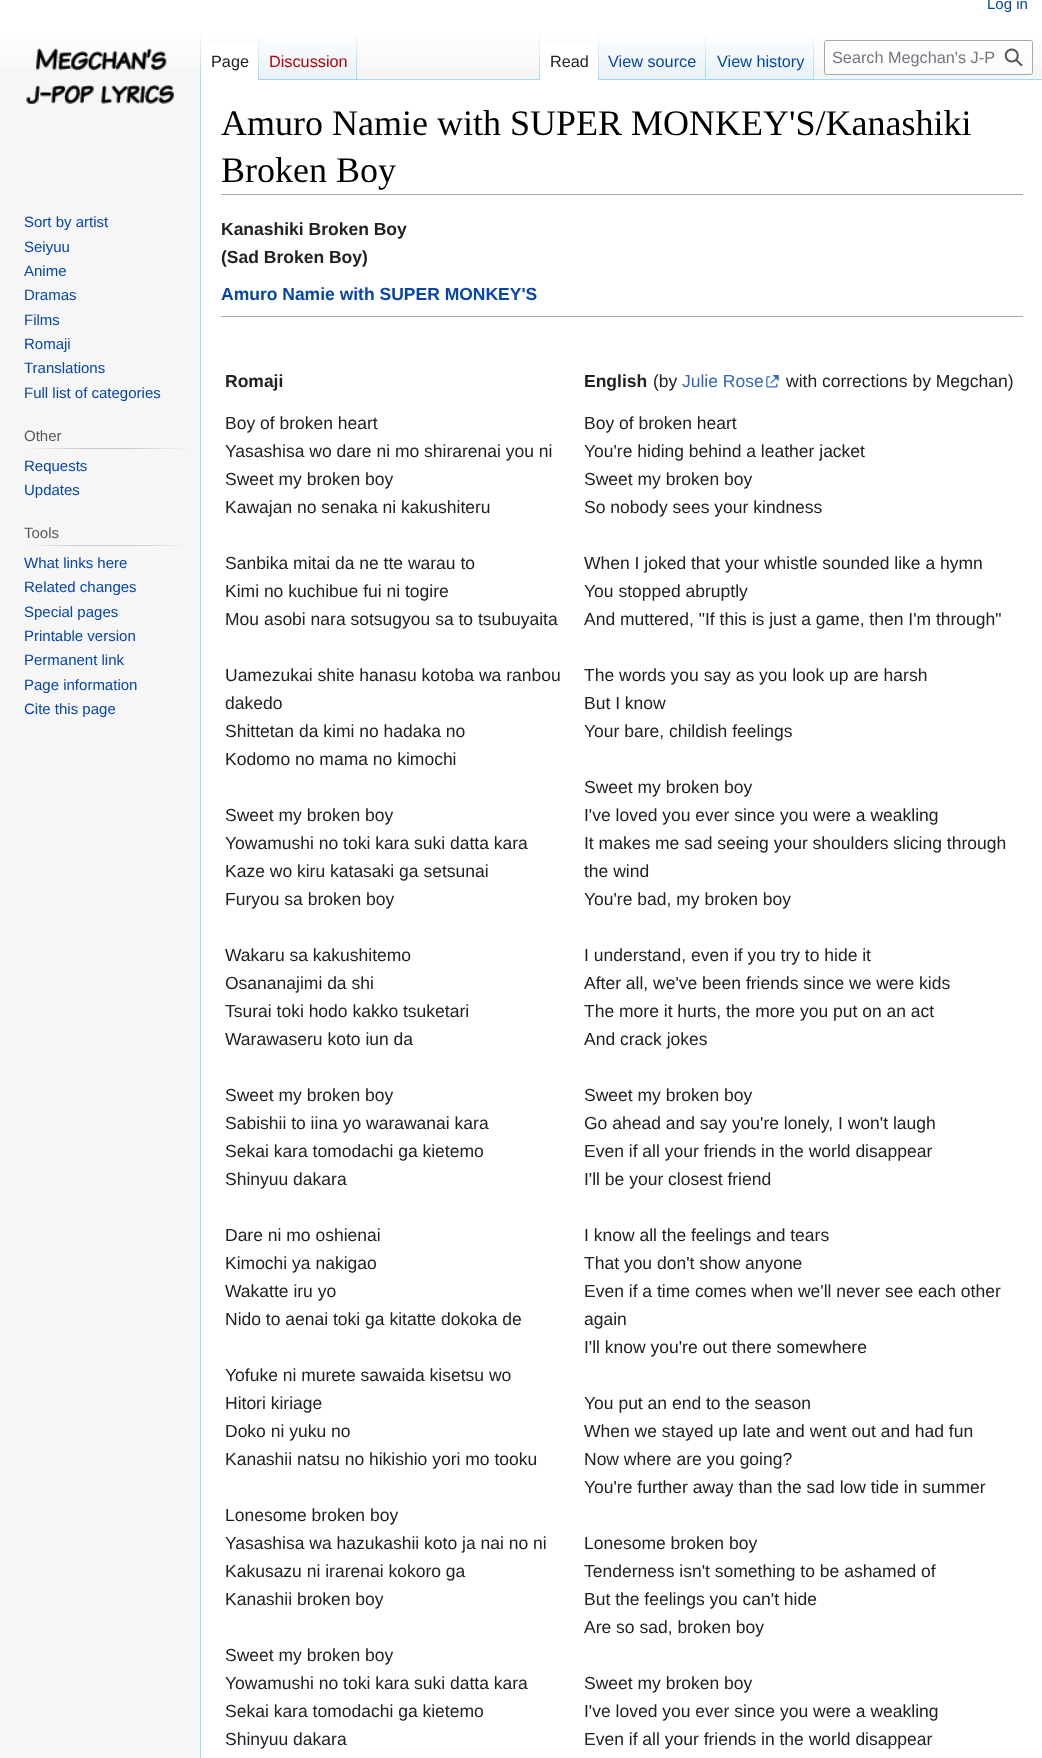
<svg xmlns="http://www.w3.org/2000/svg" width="1042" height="1758">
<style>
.a{font:15px Liberation Sans;fill:#0645ad}
.b{font:16.25px Liberation Sans;fill:#202122}
.c{font:16.25px Liberation Sans;fill:#ba0000}
.d{font:16.25px Liberation Sans;fill:#0645ad}
.e{font:16.25px Liberation Sans;fill:#72777d}
.f{font:15px Liberation Sans;fill:#54595d}
.g{font:36px Liberation Serif;fill:#000}
.h{font:bold 17.5px Liberation Sans;fill:#202122}
.i{font:bold 17.5px Liberation Sans;fill:#0645ad}
.j{font:17.5px Liberation Sans;fill:#202122}
.k{font:17.5px Liberation Sans;fill:#36b}
</style>
<defs>
<linearGradient id="g1" gradientUnits="userSpaceOnUse" x1="521" y1="-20" x2="521" y2="80"><stop offset="0.5" stop-color="#fff"/><stop offset="1" stop-color="#f6f6f6"/></linearGradient>
<linearGradient id="g2" gradientUnits="userSpaceOnUse" x1="201" y1="30" x2="201" y2="80"><stop offset="0" stop-color="#a7d7f9" stop-opacity="0"/><stop offset="1" stop-color="#a7d7f9"/></linearGradient>
<linearGradient id="g3" gradientUnits="userSpaceOnUse" x1="258" y1="30" x2="258" y2="80"><stop offset="0" stop-color="#fff"/><stop offset="1" stop-color="#a7d7f9"/></linearGradient>
<linearGradient id="g4" gradientUnits="userSpaceOnUse" x1="308" y1="80" x2="308" y2="30"><stop offset="0" stop-color="#77c1f6"/><stop offset="0.03" stop-color="#e8f2f8"/><stop offset="1" stop-color="#fff"/></linearGradient>
<linearGradient id="g5" gradientUnits="userSpaceOnUse" x1="357" y1="30" x2="357" y2="80"><stop offset="0" stop-color="#a7d7f9" stop-opacity="0"/><stop offset="1" stop-color="#a7d7f9"/></linearGradient>
<linearGradient id="g6" gradientUnits="userSpaceOnUse" x1="539" y1="30" x2="539" y2="80"><stop offset="0" stop-color="#a7d7f9" stop-opacity="0"/><stop offset="1" stop-color="#a7d7f9"/></linearGradient>
<linearGradient id="g7" gradientUnits="userSpaceOnUse" x1="598" y1="30" x2="598" y2="80"><stop offset="0" stop-color="#fff"/><stop offset="1" stop-color="#a7d7f9"/></linearGradient>
<linearGradient id="g8" gradientUnits="userSpaceOnUse" x1="653" y1="80" x2="653" y2="30"><stop offset="0" stop-color="#77c1f6"/><stop offset="0.03" stop-color="#e8f2f8"/><stop offset="1" stop-color="#fff"/></linearGradient>
<linearGradient id="g9" gradientUnits="userSpaceOnUse" x1="706" y1="30" x2="706" y2="80"><stop offset="0" stop-color="#a7d7f9" stop-opacity="0"/><stop offset="1" stop-color="#a7d7f9"/></linearGradient>
<linearGradient id="g10" gradientUnits="userSpaceOnUse" x1="760" y1="80" x2="760" y2="30"><stop offset="0" stop-color="#77c1f6"/><stop offset="0.03" stop-color="#e8f2f8"/><stop offset="1" stop-color="#fff"/></linearGradient>
<linearGradient id="g11" gradientUnits="userSpaceOnUse" x1="813" y1="30" x2="813" y2="80"><stop offset="0" stop-color="#a7d7f9" stop-opacity="0"/><stop offset="1" stop-color="#a7d7f9"/></linearGradient>
<linearGradient id="g12" gradientUnits="userSpaceOnUse" x1="24" y1="448" x2="188" y2="448"><stop offset="0" stop-color="#f6f6f6"/><stop offset="0.33" stop-color="#c8ccd1"/><stop offset="0.66" stop-color="#c8ccd1"/><stop offset="1" stop-color="#f6f6f6"/></linearGradient>
<linearGradient id="g13" gradientUnits="userSpaceOnUse" x1="24" y1="546" x2="188" y2="546"><stop offset="0" stop-color="#f6f6f6"/><stop offset="0.33" stop-color="#c8ccd1"/><stop offset="0.66" stop-color="#c8ccd1"/><stop offset="1" stop-color="#f6f6f6"/></linearGradient>
</defs>
<rect width="100%" height="100%" fill="#f6f6f6"/>
<path fill="url(#g1)" d="M0 0h1042v66H0z"/>
<path fill="#a7d7f9" d="M200 79h1v1679H200z"/>
<path fill="url(#g2)" d="M200 30h1v50H200z"/>
<path fill="#fff" d="M201 44h57v36H201z"/>
<path fill="url(#g3)" d="M258 30h1v50H258z"/>
<path fill="url(#g4)" d="M259 37h99v43H259z"/>
<path fill="url(#g5)" d="M356 30h1v50H356z"/>
<path fill="#a7d7f9" d="M358 79h684v1H358z"/>
<path fill="url(#g6)" d="M539 30h1v50H539z"/>
<path fill="#fff" d="M540 44h58v36H540z"/>
<path fill="url(#g7)" d="M598 30h1v50H598z"/>
<path fill="url(#g8)" d="M599 37h107v43H599z"/>
<path fill="url(#g9)" d="M705 30h1v50H705z"/>
<path fill="url(#g10)" d="M706 37h108v43H706z"/>
<path fill="url(#g11)" d="M813 30h1v50H813z"/>
<rect fill="#ffffff80" stroke="#a2a9b1" x="824.5" y="40.5" width="208" height="34" rx="2"/>
<image href="1.png" x="1004" y="48" width="19" height="19"/>
<image href="2.png" x="26" y="48" width="148" height="56"/>
<path fill="url(#g12)" d="M24 448h164v1H24z"/>
<path fill="url(#g13)" d="M24 545h164v1H24z"/>
<path fill="#fff" d="M201 80h841v1678H201z"/>
<path fill="#a2a9b1" d="M221 194h802v1H221z"/>
<path fill="#a2a9b1" d="M221 316h802v1H221z"/>
<image href="3.png" x="766" y="375" width="13" height="13"/>
<text class="a" x="987" y="9">Log in</text>
<text class="b" x="211" y="67">Page</text>
<text class="c" x="269" y="67">Discussion</text>
<text class="b" x="550" y="67">Read</text>
<text class="d" x="608" y="67">View source</text>
<text class="d" x="717" y="67">View history</text>
<text class="e" x="832" y="63">Search Megchan's J-P</text>
<text class="a" x="24" y="227">Sort by artist</text>
<text class="a" x="24" y="252">Seiyuu</text>
<text class="a" x="24" y="276">Anime</text>
<text class="a" x="24" y="300">Dramas</text>
<text class="a" x="24" y="325">Films</text>
<text class="a" x="24" y="349">Romaji</text>
<text class="a" x="24" y="373">Translations</text>
<text class="a" x="24" y="398">Full list of categories</text>
<text class="f" x="24" y="441">Other</text>
<text class="a" x="24" y="471">Requests</text>
<text class="a" x="24" y="495">Updates</text>
<text class="f" x="24" y="538">Tools</text>
<text class="a" x="24" y="568">What links here</text>
<text class="a" x="24" y="592">Related changes</text>
<text class="a" x="24" y="617">Special pages</text>
<text class="a" x="24" y="641">Printable version</text>
<text class="a" x="24" y="665">Permanent link</text>
<text class="a" x="24" y="690">Page information</text>
<text class="a" x="24" y="714">Cite this page</text>
<text class="g" x="221" y="135">Amuro Namie with SUPER MONKEY'S/Kanashiki</text>
<text class="g" x="221" y="182">Broken Boy</text>
<text class="h" x="221" y="235">Kanashiki Broken Boy</text>
<text class="h" x="221" y="263">(Sad Broken Boy)</text>
<text class="i" x="221" y="300">Amuro Namie with SUPER MONKEY'S</text>
<text class="h" x="225" y="387">Romaji</text>
<text class="h" x="584" y="387">English</text>
<text class="j" x="653" y="387">(by</text>
<text class="k" x="682" y="387">Julie Rose</text>
<text class="j" x="786" y="387">with corrections by Megchan)</text>
<text class="j" x="225" y="429">Boy of broken heart</text>
<text class="j" x="225" y="457">Yasashisa wo dare ni mo shirarenai you ni</text>
<text class="j" x="225" y="485">Sweet my broken boy</text>
<text class="j" x="225" y="513">Kawajan no senaka ni kakushiteru</text>
<text class="j" x="225" y="569">Sanbika mitai da ne tte warau to</text>
<text class="j" x="225" y="597">Kimi no kuchibue fui ni togire</text>
<text class="j" x="225" y="625">Mou asobi nara sotsugyou sa to tsubuyaita</text>
<text class="j" x="225" y="681">Uamezukai shite hanasu kotoba wa ranbou</text>
<text class="j" x="225" y="709">dakedo</text>
<text class="j" x="225" y="737">Shittetan da kimi no hadaka no</text>
<text class="j" x="225" y="765">Kodomo no mama no kimochi</text>
<text class="j" x="225" y="821">Sweet my broken boy</text>
<text class="j" x="225" y="849">Yowamushi no toki kara suki datta kara</text>
<text class="j" x="225" y="877">Kaze wo kiru katasaki ga setsunai</text>
<text class="j" x="225" y="905">Furyou sa broken boy</text>
<text class="j" x="225" y="961">Wakaru sa kakushitemo</text>
<text class="j" x="225" y="989">Osananajimi da shi</text>
<text class="j" x="225" y="1017">Tsurai toki hodo kakko tsuketari</text>
<text class="j" x="225" y="1045">Warawaseru koto iun da</text>
<text class="j" x="225" y="1101">Sweet my broken boy</text>
<text class="j" x="225" y="1129">Sabishii to iina yo warawanai kara</text>
<text class="j" x="225" y="1157">Sekai kara tomodachi ga kietemo</text>
<text class="j" x="225" y="1185">Shinyuu dakara</text>
<text class="j" x="225" y="1241">Dare ni mo oshienai</text>
<text class="j" x="225" y="1269">Kimochi ya nakigao</text>
<text class="j" x="225" y="1297">Wakatte iru yo</text>
<text class="j" x="225" y="1325">Nido to aenai toki ga kitatte dokoka de</text>
<text class="j" x="225" y="1381">Yofuke ni murete sawaida kisetsu wo</text>
<text class="j" x="225" y="1409">Hitori kiriage</text>
<text class="j" x="225" y="1437">Doko ni yuku no</text>
<text class="j" x="225" y="1465">Kanashii natsu no hikishio yori mo tooku</text>
<text class="j" x="225" y="1521">Lonesome broken boy</text>
<text class="j" x="225" y="1549">Yasashisa wa hazukashii koto ja nai no ni</text>
<text class="j" x="225" y="1577">Kakusazu ni irarenai kokoro ga</text>
<text class="j" x="225" y="1605">Kanashii broken boy</text>
<text class="j" x="225" y="1661">Sweet my broken boy</text>
<text class="j" x="225" y="1689">Yowamushi no toki kara suki datta kara</text>
<text class="j" x="225" y="1717">Sekai kara tomodachi ga kietemo</text>
<text class="j" x="225" y="1745">Shinyuu dakara</text>
<text class="j" x="584" y="429">Boy of broken heart</text>
<text class="j" x="584" y="457">You're hiding behind a leather jacket</text>
<text class="j" x="584" y="485">Sweet my broken boy</text>
<text class="j" x="584" y="513">So nobody sees your kindness</text>
<text class="j" x="584" y="569">When I joked that your whistle sounded like a hymn</text>
<text class="j" x="584" y="597">You stopped abruptly</text>
<text class="j" x="584" y="625">And muttered, "If this is just a game, then I'm through"</text>
<text class="j" x="584" y="681">The words you say as you look up are harsh</text>
<text class="j" x="584" y="709">But I know</text>
<text class="j" x="584" y="737">Your bare, childish feelings</text>
<text class="j" x="584" y="793">Sweet my broken boy</text>
<text class="j" x="584" y="821">I've loved you ever since you were a weakling</text>
<text class="j" x="584" y="849">It makes me sad seeing your shoulders slicing through</text>
<text class="j" x="584" y="877">the wind</text>
<text class="j" x="584" y="905">You're bad, my broken boy</text>
<text class="j" x="584" y="961">I understand, even if you try to hide it</text>
<text class="j" x="584" y="989">After all, we've been friends since we were kids</text>
<text class="j" x="584" y="1017">The more it hurts, the more you put on an act</text>
<text class="j" x="584" y="1045">And crack jokes</text>
<text class="j" x="584" y="1101">Sweet my broken boy</text>
<text class="j" x="584" y="1129">Go ahead and say you're lonely, I won't laugh</text>
<text class="j" x="584" y="1157">Even if all your friends in the world disappear</text>
<text class="j" x="584" y="1185">I'll be your closest friend</text>
<text class="j" x="584" y="1241">I know all the feelings and tears</text>
<text class="j" x="584" y="1269">That you don't show anyone</text>
<text class="j" x="584" y="1297">Even if a time comes when we'll never see each other</text>
<text class="j" x="584" y="1325">again</text>
<text class="j" x="584" y="1353">I'll know you're out there somewhere</text>
<text class="j" x="584" y="1409">You put an end to the season</text>
<text class="j" x="584" y="1437">When we stayed up late and went out and had fun</text>
<text class="j" x="584" y="1465">Now where are you going?</text>
<text class="j" x="584" y="1493">You're further away than the sad low tide in summer</text>
<text class="j" x="584" y="1549">Lonesome broken boy</text>
<text class="j" x="584" y="1577">Tenderness isn't something to be ashamed of</text>
<text class="j" x="584" y="1605">But the feelings you can't hide</text>
<text class="j" x="584" y="1633">Are so sad, broken boy</text>
<text class="j" x="584" y="1689">Sweet my broken boy</text>
<text class="j" x="584" y="1717">I've loved you ever since you were a weakling</text>
<text class="j" x="584" y="1745">Even if all your friends in the world disappear</text>
</svg>
